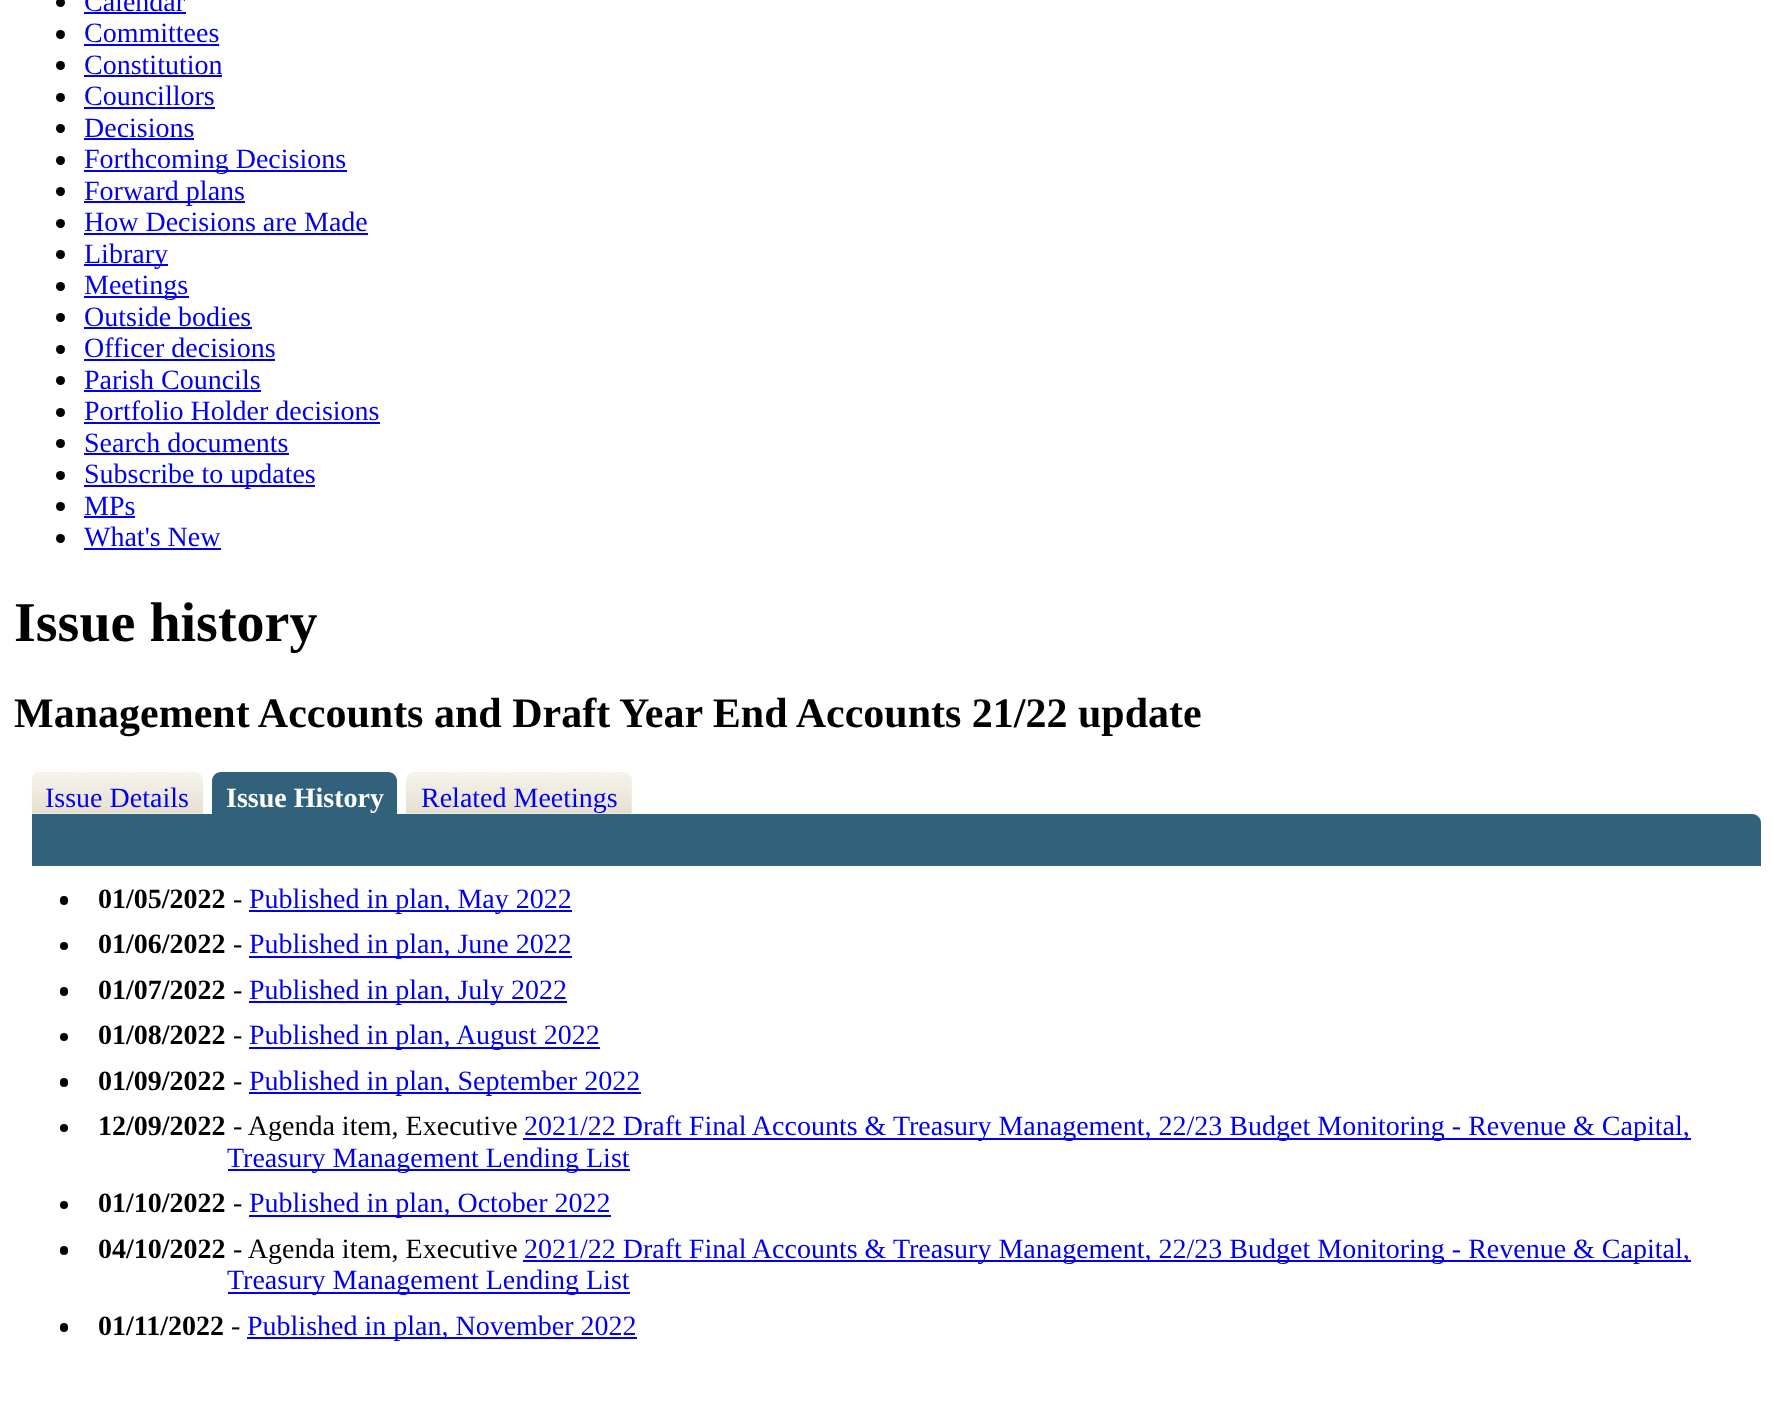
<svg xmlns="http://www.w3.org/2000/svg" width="1774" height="1401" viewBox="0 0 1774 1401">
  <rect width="100%" height="100%" fill="rgb(255,255,255)"/>
  <circle cx="60.5" cy="2.5" r="4.5" fill="rgb(0,0,0)"/>
  <text x="84" y="11" font-family="Liberation Serif" font-size="28" fill="rgb(0,0,238)">Calendar</text>
  <rect x="84" y="12" width="102" height="2" fill="rgb(0,0,238)"/>
  <circle cx="60.5" cy="34.5" r="4.5" fill="rgb(0,0,0)"/>
  <text x="84" y="42" font-family="Liberation Serif" font-size="28" fill="rgb(0,0,238)">Committees</text>
  <rect x="84" y="44" width="135" height="2" fill="rgb(0,0,238)"/>
  <circle cx="60.5" cy="65.5" r="4.5" fill="rgb(0,0,0)"/>
  <text x="84" y="74" font-family="Liberation Serif" font-size="28" fill="rgb(0,0,238)">Constitution</text>
  <rect x="84" y="75" width="138" height="2" fill="rgb(0,0,238)"/>
  <circle cx="60.5" cy="97.5" r="4.5" fill="rgb(0,0,0)"/>
  <text x="84" y="105" font-family="Liberation Serif" font-size="28" fill="rgb(0,0,238)">Councillors</text>
  <rect x="84" y="107" width="131" height="2" fill="rgb(0,0,238)"/>
  <circle cx="60.5" cy="128.5" r="4.5" fill="rgb(0,0,0)"/>
  <text x="84" y="137" font-family="Liberation Serif" font-size="28" fill="rgb(0,0,238)">Decisions</text>
  <rect x="84" y="138" width="110" height="2" fill="rgb(0,0,238)"/>
  <circle cx="60.5" cy="160.5" r="4.5" fill="rgb(0,0,0)"/>
  <rect x="84" y="170" width="263" height="2" fill="rgb(0,0,238)"/>
  <text x="84" y="168" font-family="Liberation Serif" font-size="28" fill="rgb(0,0,238)">Forthcoming Decisions</text>
  <circle cx="60.5" cy="191.5" r="4.5" fill="rgb(0,0,0)"/>
  <rect x="84" y="201" width="161" height="2" fill="rgb(0,0,238)"/>
  <text x="84" y="200" font-family="Liberation Serif" font-size="28" fill="rgb(0,0,238)">Forward plans</text>
  <circle cx="60.5" cy="223.5" r="4.5" fill="rgb(0,0,0)"/>
  <text x="84" y="231" font-family="Liberation Serif" font-size="28" fill="rgb(0,0,238)">How Decisions are Made</text>
  <rect x="84" y="233" width="284" height="2" fill="rgb(0,0,238)"/>
  <circle cx="60.5" cy="254.5" r="4.5" fill="rgb(0,0,0)"/>
  <rect x="84" y="264" width="84" height="2" fill="rgb(0,0,238)"/>
  <text x="84" y="263" font-family="Liberation Serif" font-size="28" fill="rgb(0,0,238)">Library</text>
  <circle cx="60.5" cy="286.5" r="4.5" fill="rgb(0,0,0)"/>
  <rect x="84" y="296" width="105" height="2" fill="rgb(0,0,238)"/>
  <text x="84" y="294" font-family="Liberation Serif" font-size="28" fill="rgb(0,0,238)">Meetings</text>
  <circle cx="60.5" cy="317.5" r="4.5" fill="rgb(0,0,0)"/>
  <text x="84" y="326" font-family="Liberation Serif" font-size="28" fill="rgb(0,0,238)">Outside bodies</text>
  <rect x="84" y="327" width="168" height="2" fill="rgb(0,0,238)"/>
  <circle cx="60.5" cy="349.5" r="4.5" fill="rgb(0,0,0)"/>
  <text x="84" y="357" font-family="Liberation Serif" font-size="28" fill="rgb(0,0,238)">Officer decisions</text>
  <rect x="84" y="359" width="191" height="2" fill="rgb(0,0,238)"/>
  <circle cx="60.5" cy="380.5" r="4.5" fill="rgb(0,0,0)"/>
  <text x="84" y="389" font-family="Liberation Serif" font-size="28" fill="rgb(0,0,238)">Parish Councils</text>
  <rect x="84" y="390" width="177" height="2" fill="rgb(0,0,238)"/>
  <circle cx="60.5" cy="412.5" r="4.5" fill="rgb(0,0,0)"/>
  <text x="84" y="420" font-family="Liberation Serif" font-size="28" fill="rgb(0,0,238)">Portfolio Holder decisions</text>
  <rect x="84" y="422" width="296" height="2" fill="rgb(0,0,238)"/>
  <circle cx="60.5" cy="443.5" r="4.5" fill="rgb(0,0,0)"/>
  <text x="84" y="452" font-family="Liberation Serif" font-size="28" fill="rgb(0,0,238)">Search documents</text>
  <rect x="84" y="453" width="205" height="2" fill="rgb(0,0,238)"/>
  <circle cx="60.5" cy="475.5" r="4.5" fill="rgb(0,0,0)"/>
  <rect x="84" y="485" width="231" height="2" fill="rgb(0,0,238)"/>
  <text x="84" y="483" font-family="Liberation Serif" font-size="28" fill="rgb(0,0,238)">Subscribe to updates</text>
  <circle cx="60.5" cy="506.5" r="4.5" fill="rgb(0,0,0)"/>
  <text x="84" y="515" font-family="Liberation Serif" font-size="28" fill="rgb(0,0,238)">MPs</text>
  <rect x="84" y="516" width="51" height="2" fill="rgb(0,0,238)"/>
  <circle cx="60.5" cy="538.5" r="4.5" fill="rgb(0,0,0)"/>
  <text x="84" y="546" font-family="Liberation Serif" font-size="28" fill="rgb(0,0,238)">What's New</text>
  <rect x="84" y="548" width="137" height="2" fill="rgb(0,0,238)"/>
  <text x="14" y="641" font-family="Liberation Serif" font-size="56" font-weight="bold" fill="rgb(0,0,0)">Issue history</text>
  <text x="14" y="727" font-family="Liberation Serif" font-size="42" font-weight="bold" fill="rgb(0,0,0)">Management Accounts and Draft Year End Accounts 21/22 update</text>
  <path d="M41 772H194C199 772 203 776 203 781V814H32V781C32 776 36 772 41 772Z" fill="rgb(243,243,243)"/>
  <image x="31" y="772" width="172" height="42" href="pic1.png"/>
  <text x="45" y="807" font-family="Liberation Serif" font-size="28" fill="rgb(0,0,238)">Issue Details</text>
  <path d="M221 772H388C393 772 397 776 397 781V814H212V781C212 776 216 772 221 772Z" fill="rgb(49,97,123)"/>
  <text x="226" y="807" font-family="Liberation Serif" font-size="28" font-weight="bold" fill="rgb(255,255,255)">Issue History</text>
  <path d="M415 772H623C628 772 632 776 632 781V814H406V781C406 776 410 772 415 772Z" fill="rgb(243,243,243)"/>
  <image x="406" y="772" width="226" height="42" href="pic2.png"/>
  <text x="421" y="807" font-family="Liberation Serif" font-size="28" fill="rgb(0,0,238)">Related Meetings</text>
  <path d="M32 814H1752C1757 814 1761 818 1761 823V866H32Z" fill="rgb(49,97,123)"/>
  <rect x="60" y="896" width="8" height="9" rx="4" fill="rgb(0,0,0)"/>
  <text x="98" y="908" font-family="Liberation Serif" font-size="28" font-weight="bold" fill="rgb(0,0,0)">01/05/2022</text>
  <text x="233" y="908" font-family="Liberation Serif" font-size="28" fill="rgb(0,0,0)">-</text>
  <rect x="249" y="910" width="323" height="2" fill="rgb(0,0,238)"/>
  <text x="249" y="908" font-family="Liberation Serif" font-size="28" fill="rgb(0,0,238)">Published in plan, May 2022</text>
  <circle cx="64" cy="946" r="4" fill="rgb(0,0,0)"/>
  <text x="98" y="953" font-family="Liberation Serif" font-size="28" font-weight="bold" fill="rgb(0,0,0)">01/06/2022</text>
  <text x="233" y="953" font-family="Liberation Serif" font-size="28" fill="rgb(0,0,0)">-</text>
  <rect x="249" y="956" width="323" height="2" fill="rgb(0,0,238)"/>
  <text x="249" y="953" font-family="Liberation Serif" font-size="28" fill="rgb(0,0,238)">Published in plan, June 2022</text>
  <rect x="60" y="987" width="8" height="9" rx="4" fill="rgb(0,0,0)"/>
  <text x="98" y="999" font-family="Liberation Serif" font-size="28" font-weight="bold" fill="rgb(0,0,0)">01/07/2022</text>
  <text x="233" y="999" font-family="Liberation Serif" font-size="28" fill="rgb(0,0,0)">-</text>
  <rect x="249" y="1001" width="318" height="2" fill="rgb(0,0,238)"/>
  <text x="249" y="999" font-family="Liberation Serif" font-size="28" fill="rgb(0,0,238)">Published in plan, July 2022</text>
  <circle cx="64" cy="1037" r="4" fill="rgb(0,0,0)"/>
  <text x="98" y="1044" font-family="Liberation Serif" font-size="28" font-weight="bold" fill="rgb(0,0,0)">01/08/2022</text>
  <text x="233" y="1044" font-family="Liberation Serif" font-size="28" fill="rgb(0,0,0)">-</text>
  <rect x="249" y="1047" width="351" height="2" fill="rgb(0,0,238)"/>
  <text x="249" y="1044" font-family="Liberation Serif" font-size="28" fill="rgb(0,0,238)">Published in plan, August 2022</text>
  <rect x="60" y="1078" width="8" height="9" rx="4" fill="rgb(0,0,0)"/>
  <text x="98" y="1090" font-family="Liberation Serif" font-size="28" font-weight="bold" fill="rgb(0,0,0)">01/09/2022</text>
  <text x="233" y="1090" font-family="Liberation Serif" font-size="28" fill="rgb(0,0,0)">-</text>
  <rect x="249" y="1092" width="392" height="2" fill="rgb(0,0,238)"/>
  <text x="249" y="1090" font-family="Liberation Serif" font-size="28" fill="rgb(0,0,238)">Published in plan, September 2022</text>
  <circle cx="64" cy="1128" r="4" fill="rgb(0,0,0)"/>
  <text x="98" y="1135" font-family="Liberation Serif" font-size="28" font-weight="bold" fill="rgb(0,0,0)">12/09/2022</text>
  <text x="233" y="1135" font-family="Liberation Serif" font-size="28" fill="rgb(0,0,0)">- Agenda item, Executive</text>
  <rect x="523" y="1138" width="1168" height="2" fill="rgb(0,0,238)"/>
  <text x="524" y="1135" font-family="Liberation Serif" font-size="28" fill="rgb(0,0,238)">2021/22 Draft Final Accounts &amp; Treasury Management, 22/23 Budget Monitoring - Revenue &amp; Capital,</text>
  <rect x="228" y="1169" width="402" height="2" fill="rgb(0,0,238)"/>
  <text x="227" y="1167" font-family="Liberation Serif" font-size="28" fill="rgb(0,0,238)">Treasury Management Lending List</text>
  <circle cx="64" cy="1205" r="4" fill="rgb(0,0,0)"/>
  <text x="98" y="1212" font-family="Liberation Serif" font-size="28" font-weight="bold" fill="rgb(0,0,0)">01/10/2022</text>
  <text x="233" y="1212" font-family="Liberation Serif" font-size="28" fill="rgb(0,0,0)">-</text>
  <rect x="249" y="1215" width="362" height="2" fill="rgb(0,0,238)"/>
  <text x="249" y="1212" font-family="Liberation Serif" font-size="28" fill="rgb(0,0,238)">Published in plan, October 2022</text>
  <rect x="60" y="1246" width="8" height="9" rx="4" fill="rgb(0,0,0)"/>
  <text x="98" y="1258" font-family="Liberation Serif" font-size="28" font-weight="bold" fill="rgb(0,0,0)">04/10/2022</text>
  <text x="233" y="1258" font-family="Liberation Serif" font-size="28" fill="rgb(0,0,0)">- Agenda item, Executive</text>
  <rect x="523" y="1260" width="1168" height="2" fill="rgb(0,0,238)"/>
  <text x="524" y="1258" font-family="Liberation Serif" font-size="28" fill="rgb(0,0,238)">2021/22 Draft Final Accounts &amp; Treasury Management, 22/23 Budget Monitoring - Revenue &amp; Capital,</text>
  <rect x="228" y="1292" width="402" height="2" fill="rgb(0,0,238)"/>
  <text x="227" y="1289" font-family="Liberation Serif" font-size="28" fill="rgb(0,0,238)">Treasury Management Lending List</text>
  <rect x="60" y="1323" width="8" height="9" rx="4" fill="rgb(0,0,0)"/>
  <text x="98" y="1335" font-family="Liberation Serif" font-size="28" font-weight="bold" fill="rgb(0,0,0)">01/11/2022</text>
  <text x="231" y="1335" font-family="Liberation Serif" font-size="28" fill="rgb(0,0,0)">-</text>
  <rect x="247" y="1337" width="390" height="2" fill="rgb(0,0,238)"/>
  <text x="247" y="1335" font-family="Liberation Serif" font-size="28" fill="rgb(0,0,238)">Published in plan, November 2022</text>
</svg>
